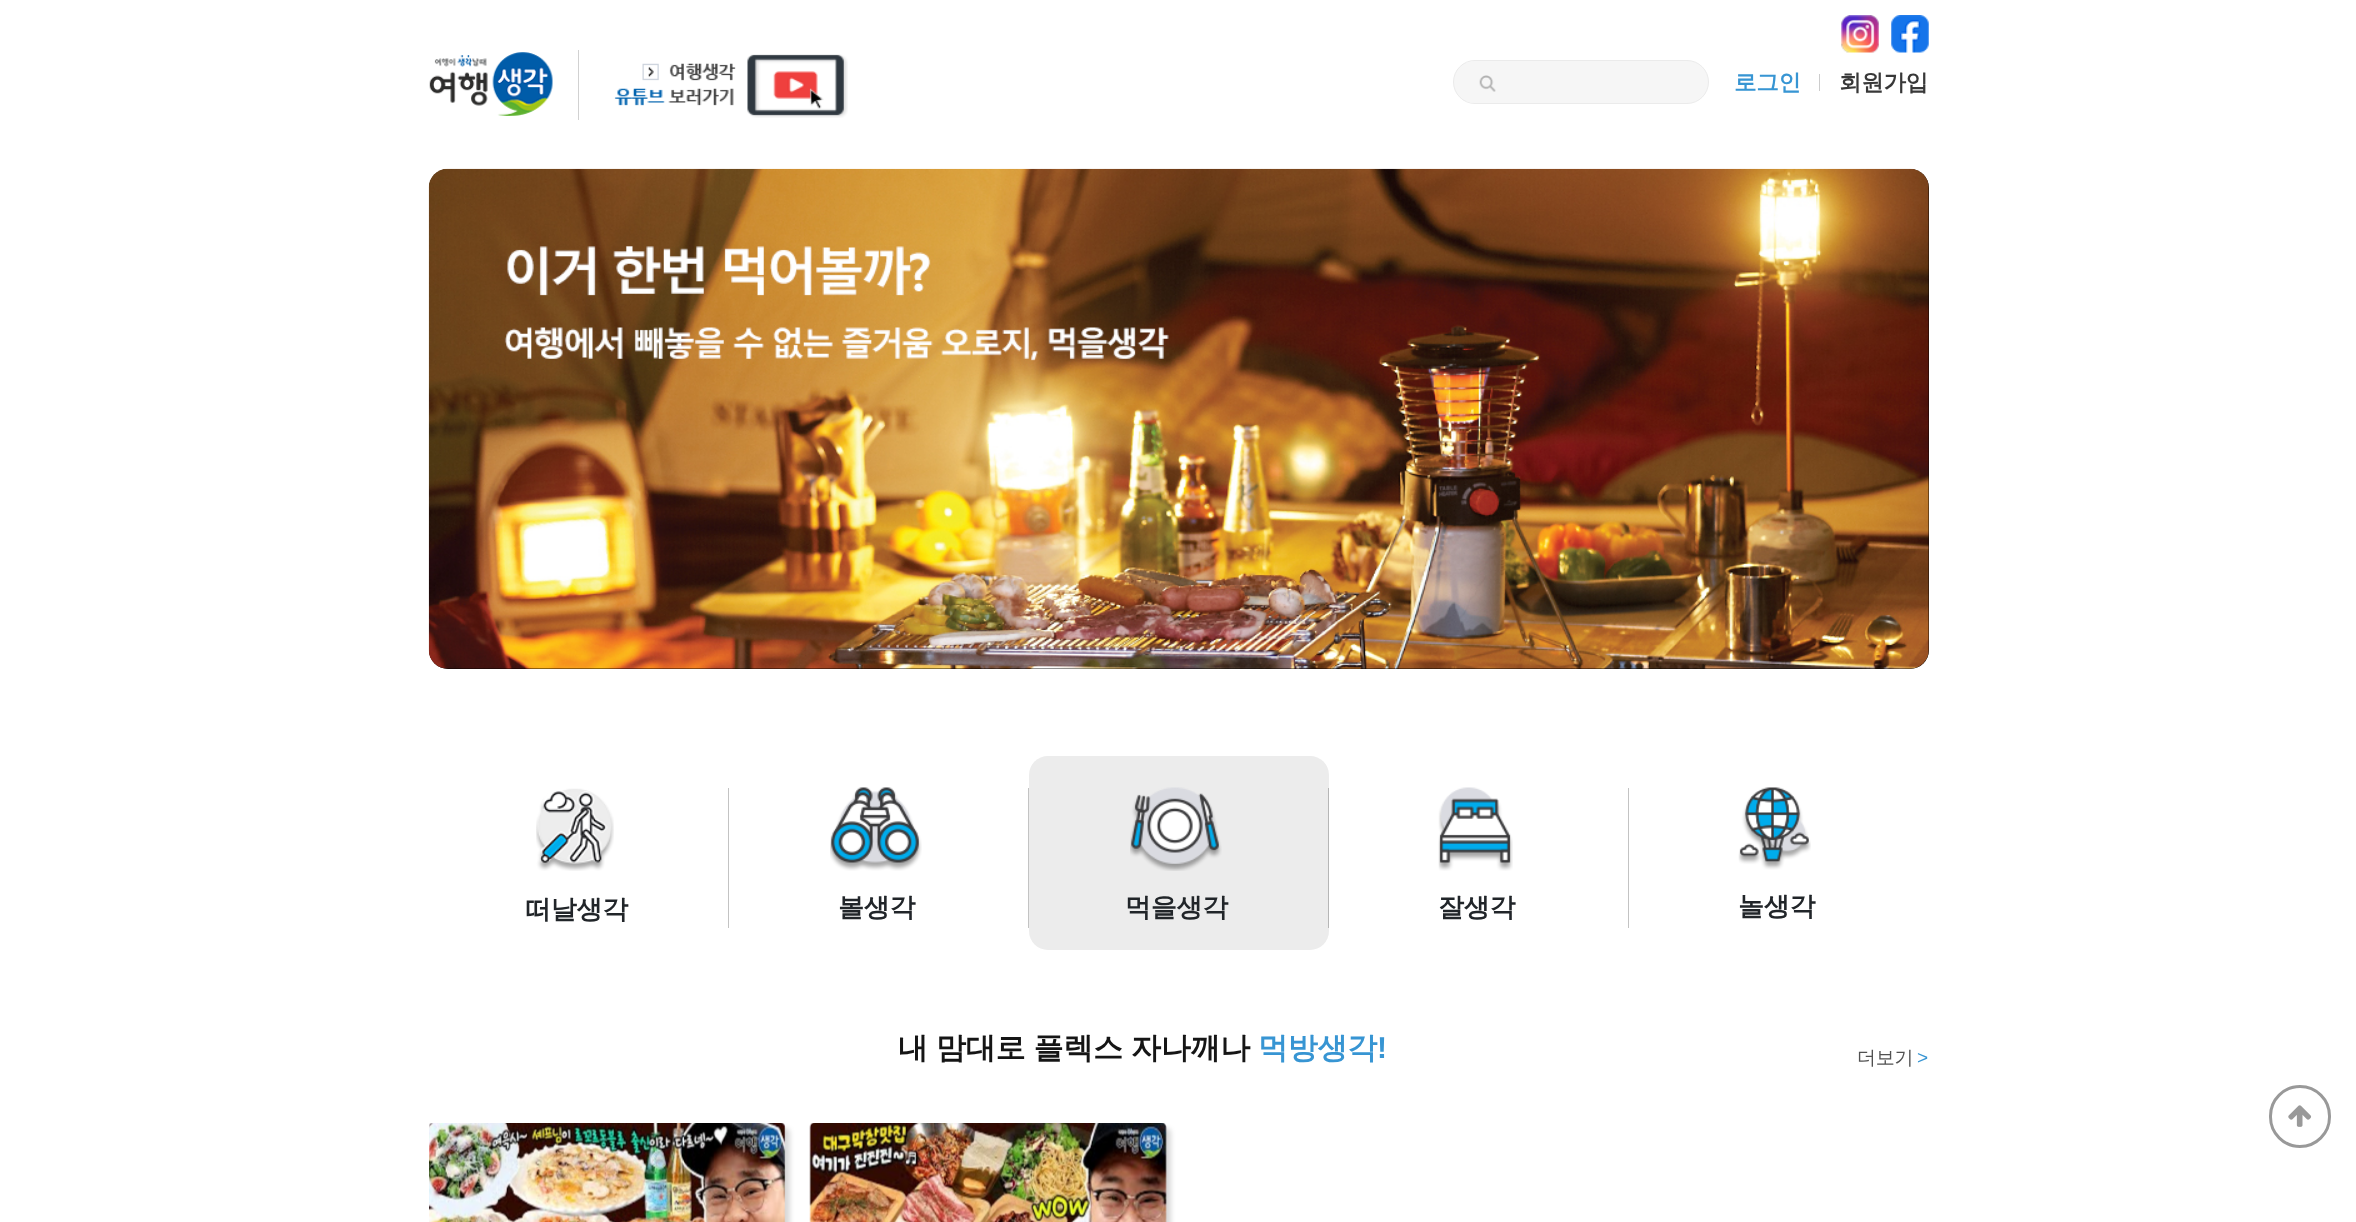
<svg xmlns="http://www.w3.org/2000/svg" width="2356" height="1222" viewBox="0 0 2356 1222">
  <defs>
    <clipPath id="clip1"><rect x="1454" y="61" width="254" height="42" rx="21"/></clipPath>
  </defs>
  <rect width="100%" height="100%" fill="rgb(255,255,255)"/>
  <image x="1841" y="15" width="38" height="38" href="pic1.png"/>
  <image x="1891" y="15" width="38" height="38" href="pic2.png"/>
  <image x="429" y="52" width="124" height="64" href="pic3.png"/>
  <rect x="578" y="50" width="1" height="70" fill="rgb(209,209,209)"/>
  <image x="614" y="54" width="234" height="64" href="pic4.png"/>
  <rect x="1453.5" y="60.5" width="255" height="43" rx="21.5" fill="rgb(246,246,246)" stroke="rgb(235,235,235)"/>
  <g clip-path="url(#clip1)">
    <rect x="1466" y="61" width="44" height="42" fill="rgb(246,246,246)"/>
  </g>
  <image x="1479" y="75" width="17" height="17" href="pic5.png"/>
  <rect x="1819" y="74" width="1" height="17" fill="rgb(204,204,204)"/>
  <text x="1734" y="90" font-family="WenQuanYi Zen Hei" font-size="22.5" font-weight="bold" letter-spacing="-0.25" fill="rgb(55,149,211)">로그인</text>
  <text x="1839" y="90" font-family="WenQuanYi Zen Hei" font-size="22.5" font-weight="bold" letter-spacing="-0.25" fill="rgb(56,56,56)">회원가입</text>
  <rect x="429" y="169" width="1500" height="500" rx="19" fill="rgb(0,0,0)"/>
  <image x="428" y="168" width="1501" height="501" href="pic6.png"/>
  <image x="536" y="788" width="78" height="83" href="pic7.png"/>
  <text x="525" y="918" font-family="WenQuanYi Zen Hei" font-size="26" font-weight="bold" letter-spacing="-0.25" fill="rgb(33,37,41)">떠날생각</text>
  <rect x="728" y="788" width="1" height="140" fill="rgb(195,195,195)"/>
  <image x="830" y="787" width="92" height="84" href="pic8.png"/>
  <text x="838" y="916" font-family="WenQuanYi Zen Hei" font-size="26" font-weight="bold" letter-spacing="-0.25" fill="rgb(33,37,41)">볼생각</text>
  <rect x="1028" y="788" width="1" height="140" fill="rgb(195,195,195)"/>
  <rect x="1029" y="756" width="300" height="194" rx="19" fill="rgb(236,236,236)"/>
  <image x="1130" y="787" width="92" height="84" href="pic9.png"/>
  <text x="1125" y="916" font-family="WenQuanYi Zen Hei" font-size="26" font-weight="bold" letter-spacing="-0.25" fill="rgb(33,37,41)">먹을생각</text>
  <rect x="1328" y="788" width="1" height="140" fill="rgb(182,182,182)"/>
  <image x="1438" y="787" width="75" height="84" href="pic10.png"/>
  <text x="1438" y="916" font-family="WenQuanYi Zen Hei" font-size="26" font-weight="bold" letter-spacing="-0.25" fill="rgb(33,37,41)">잘생각</text>
  <rect x="1628" y="788" width="1" height="140" fill="rgb(195,195,195)"/>
  <image x="1738" y="787" width="73" height="83" href="pic11.png"/>
  <text x="1738" y="915" font-family="WenQuanYi Zen Hei" font-size="26" font-weight="bold" letter-spacing="-0.25" fill="rgb(33,37,41)">놀생각</text>
  <text x="898" y="1058" word-spacing="-0.5" font-family="WenQuanYi Zen Hei" font-size="30" font-weight="bold" letter-spacing="-0.25" fill="rgb(21,21,21)">내 맘대로 플렉스 자나깨나</text>
  <text x="1258" y="1058" font-family="WenQuanYi Zen Hei" font-size="30" font-weight="bold" letter-spacing="-0.25" fill="rgb(55,149,211)">먹방생각</text>
  <text x="1377" y="1058" font-family="Liberation Sans" font-size="30" font-weight="bold" letter-spacing="-0.25" fill="rgb(55,149,211)">!</text>
  <text x="1857" y="1064" font-family="WenQuanYi Zen Hei" font-size="19" font-weight="500" letter-spacing="-0.25" fill="rgb(81,81,81)">더보기</text>
  <text x="1917" y="1064" font-family="Liberation Sans" font-size="19" letter-spacing="-0.25" fill="rgb(55,149,211)">&gt;</text>
  <rect x="434" y="1128" width="356" height="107" rx="5" fill="rgba(0,0,0,0.15)" filter="blur(2.5px)"/>
  <image x="429" y="1123" width="357" height="99" href="pic12.png"/>
  <rect x="815" y="1128" width="356" height="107" rx="5" fill="rgba(0,0,0,0.15)" filter="blur(2.5px)"/>
  <image x="809" y="1123" width="358" height="99" href="pic13.png"/>
  <rect x="2270.5" y="1086.5" width="59" height="60" rx="29.5" fill="none" stroke="rgb(153,153,153)" stroke-width="3"/>
  <image x="2288" y="1105" width="24" height="22" href="pic14.png"/>
</svg>
